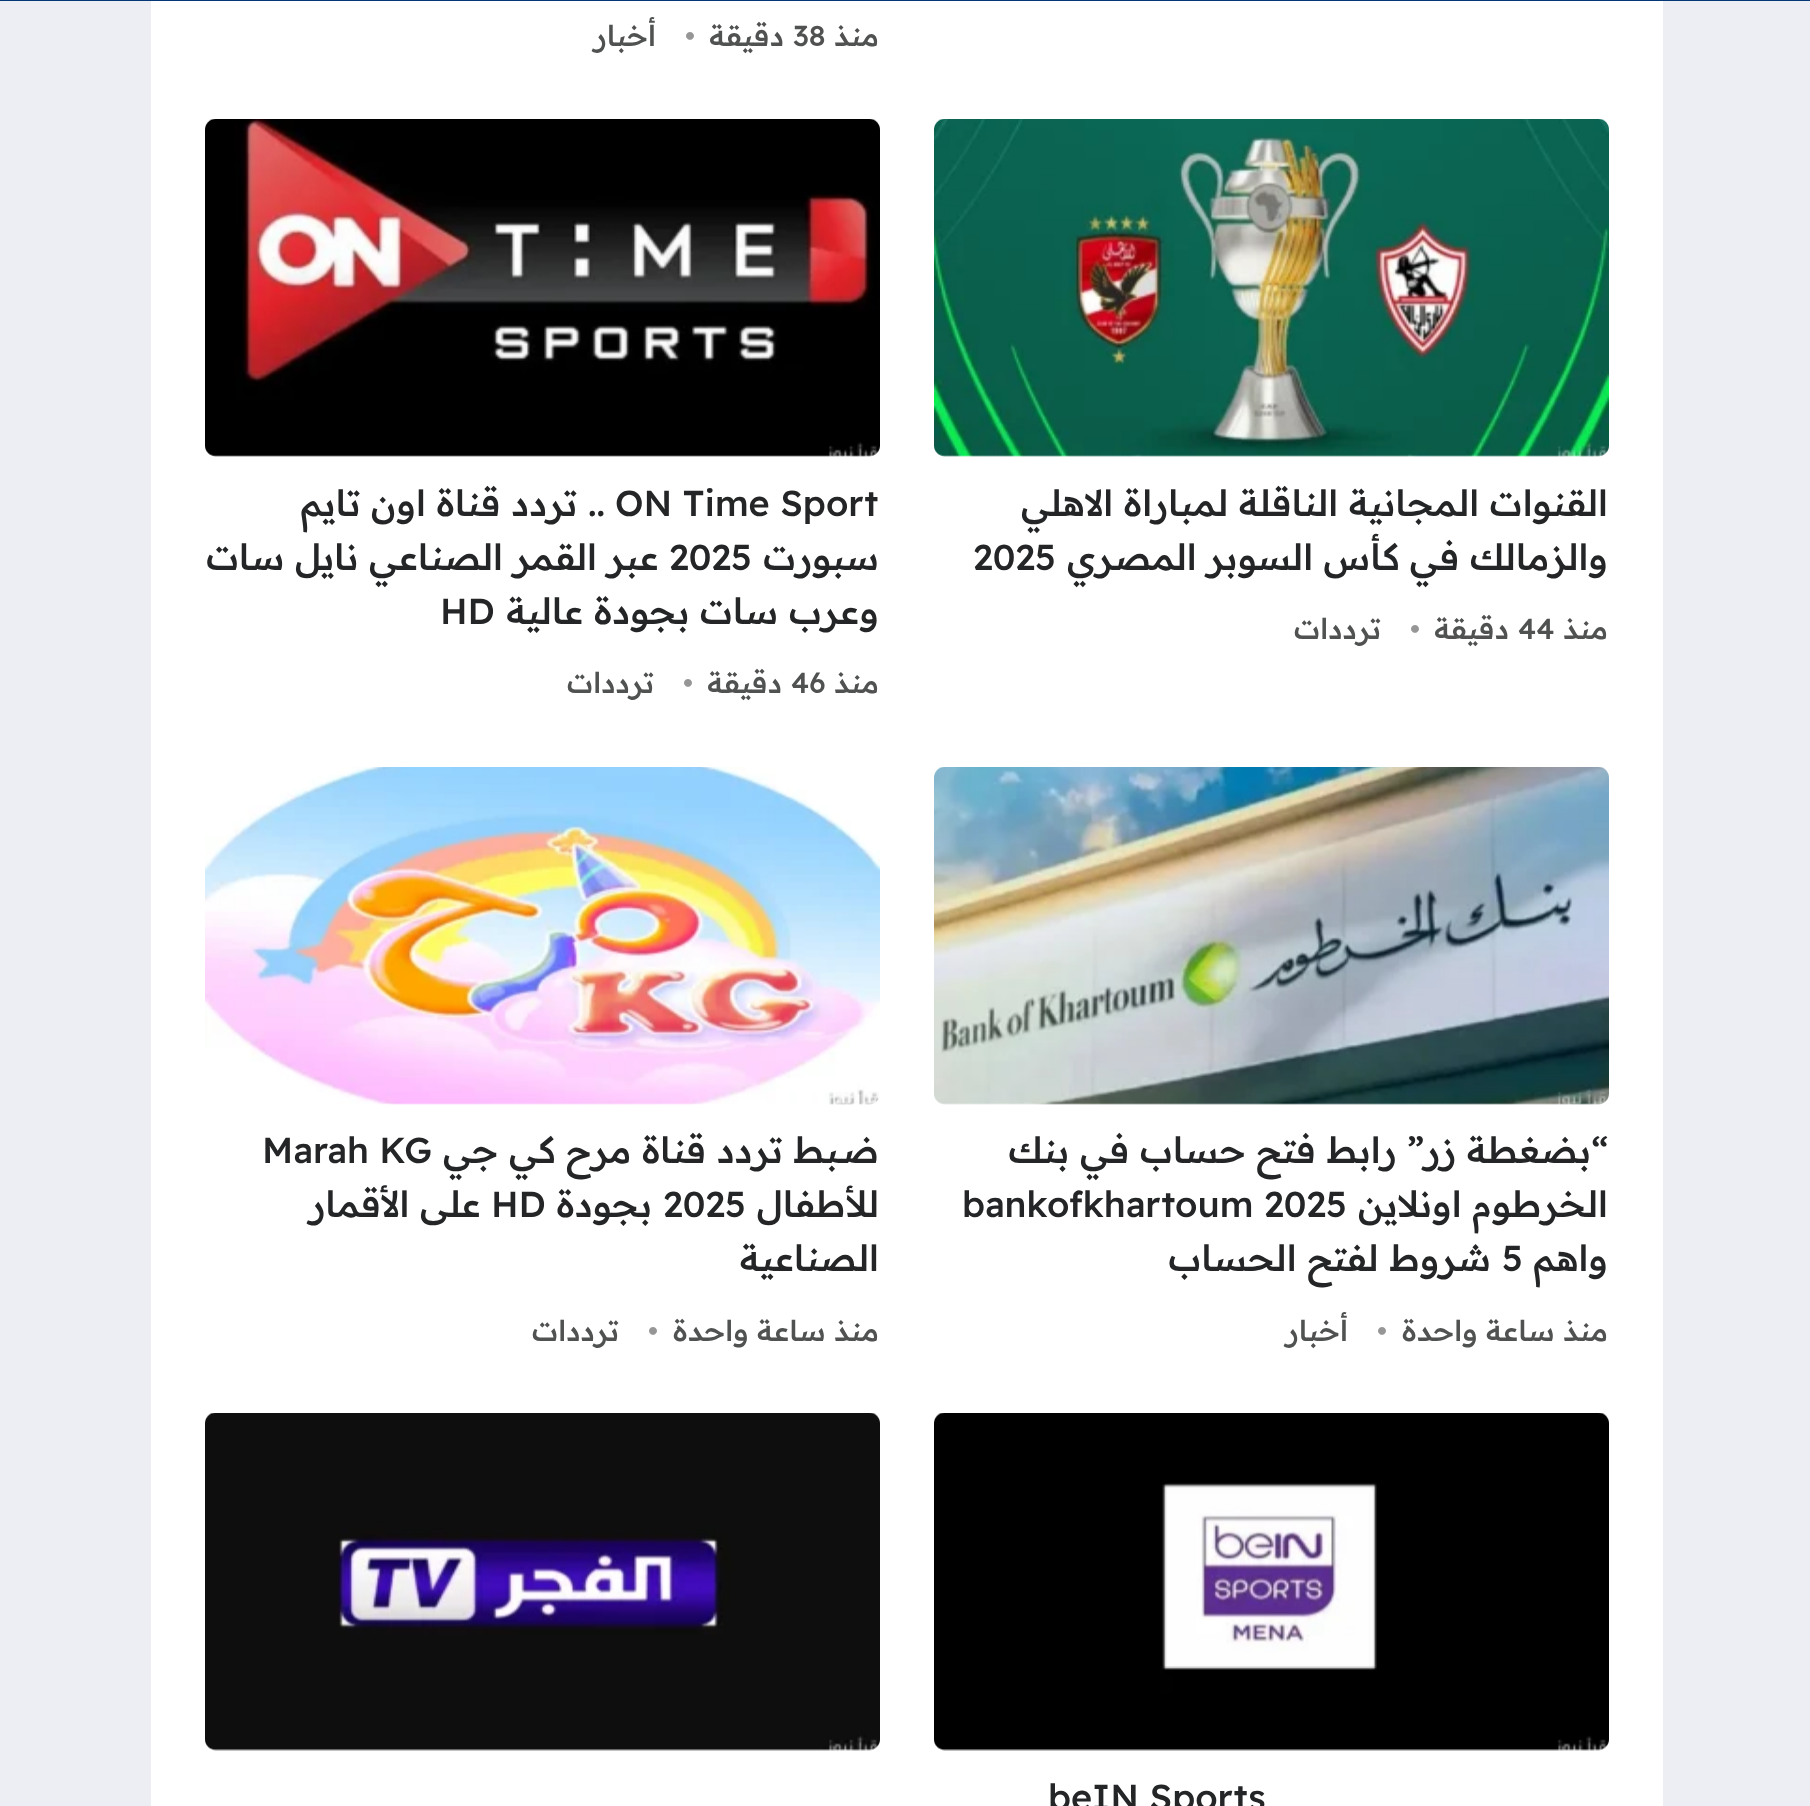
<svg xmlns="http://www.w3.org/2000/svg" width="1810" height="1806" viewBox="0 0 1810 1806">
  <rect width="100%" height="100%" fill="rgb(237,238,243)"/>
  <rect x="0" y="0" width="1810" height="1" fill="rgb(4,55,117)"/>
  <rect x="151" y="1" width="1512" height="1805" fill="rgb(255,255,255)"/>
  <text x="879" y="46" font-family="Readex Pro" font-size="28.75" font-weight="500" direction="rtl" fill="rgb(80,81,81)">منذ</text>
  <text x="793" y="46" font-family="Readex Pro" font-size="28.75" font-weight="500" fill="rgb(80,81,81)">38</text>
  <text x="784" y="46" font-family="Readex Pro" font-size="28.75" font-weight="500" direction="rtl" fill="rgb(80,81,81)">دقيقة</text>
  <text x="685" y="46" font-family="Readex Pro" font-size="28.75" font-weight="500" fill="rgb(150,150,151)">•</text>
  <text x="656" y="46" font-family="Readex Pro" font-size="28.75" font-weight="500" direction="rtl" fill="rgb(80,81,81)">أخبار</text>
  <image x="934" y="119" width="675" height="338" href="pic1.png"/>
  <g font-family="Readex Pro" font-size="36" font-weight="500" direction="rtl" fill="rgb(36,37,38)">
    <text>
      <tspan x="1608" y="516">القنوات المجانية الناقلة لمباراة الاهلي</tspan>
      <tspan x="1608" y="570">والزمالك في كأس السوبر المصري</tspan>
    </text>
  </g>
  <text x="973" y="570" font-family="Readex Pro" font-size="36" font-weight="500" fill="rgb(36,37,38)">2025</text>
  <text x="1608" y="639" font-family="Readex Pro" font-size="28.75" font-weight="500" direction="rtl" fill="rgb(80,81,81)">منذ</text>
  <text x="1518" y="639" font-family="Readex Pro" font-size="28.75" font-weight="500" fill="rgb(80,81,81)">44</text>
  <text x="1509" y="639" font-family="Readex Pro" font-size="28.75" font-weight="500" direction="rtl" fill="rgb(80,81,81)">دقيقة</text>
  <text x="1410" y="639" font-family="Readex Pro" font-size="28.75" font-weight="500" fill="rgb(150,150,151)">•</text>
  <text x="1381" y="639" font-family="Readex Pro" font-size="28.75" font-weight="500" direction="rtl" fill="rgb(80,81,81)">ترددات</text>
  <image x="205" y="119" width="675" height="338" href="pic2.png"/>
  <text x="615" y="516" font-family="Readex Pro" font-size="36" font-weight="500" fill="rgb(36,37,38)">ON Time Sport</text>
  <g font-family="Readex Pro" font-size="36" font-weight="500" direction="rtl" fill="rgb(36,37,38)">
    <text x="605" y="516">.. تردد قناة اون تايم</text>
    <text x="879" y="570">سبورت</text>
  </g>
  <text x="669" y="570" font-family="Readex Pro" font-size="36" font-weight="500" fill="rgb(36,37,38)">2025</text>
  <g font-family="Readex Pro" font-size="36" font-weight="500" direction="rtl" fill="rgb(36,37,38)">
    <text x="659" y="570">عبر القمر الصناعي نايل سات</text>
    <text x="879" y="624">وعرب سات بجودة عالية</text>
  </g>
  <text x="440" y="624" font-family="Readex Pro" font-size="36" font-weight="500" fill="rgb(36,37,38)">HD</text>
  <text x="879" y="693" font-family="Readex Pro" font-size="28.75" font-weight="500" direction="rtl" fill="rgb(80,81,81)">منذ</text>
  <text x="791" y="693" font-family="Readex Pro" font-size="28.75" font-weight="500" fill="rgb(80,81,81)">46</text>
  <text x="782" y="693" font-family="Readex Pro" font-size="28.75" font-weight="500" direction="rtl" fill="rgb(80,81,81)">دقيقة</text>
  <text x="683" y="693" font-family="Readex Pro" font-size="28.75" font-weight="500" fill="rgb(150,150,151)">•</text>
  <text x="654" y="693" font-family="Readex Pro" font-size="28.75" font-weight="500" direction="rtl" fill="rgb(80,81,81)">ترددات</text>
  <image x="934" y="767" width="675" height="338" href="pic3.png"/>
  <g font-family="Readex Pro" font-size="36" font-weight="500" direction="rtl" fill="rgb(36,37,38)">
    <text>
      <tspan x="1608" y="1163">“بضغطة زر” رابط فتح حساب في بنك</tspan>
      <tspan x="1608" y="1217">الخرطوم اونلاين</tspan>
    </text>
  </g>
  <text x="962" y="1217" font-family="Readex Pro" font-size="36" font-weight="500" fill="rgb(36,37,38)">bankofkhartoum 2025</text>
  <text x="1608" y="1271" font-family="Readex Pro" font-size="36" font-weight="500" direction="rtl" fill="rgb(36,37,38)">واهم</text>
  <text x="1502" y="1271" font-family="Readex Pro" font-size="36" font-weight="500" fill="rgb(36,37,38)">5</text>
  <text x="1491" y="1271" font-family="Readex Pro" font-size="36" font-weight="500" direction="rtl" fill="rgb(36,37,38)">شروط لفتح الحساب</text>
  <text x="1608" y="1341" font-family="Readex Pro" font-size="28.75" font-weight="500" direction="rtl" fill="rgb(80,81,81)">منذ ساعة واحدة</text>
  <text x="1377" y="1341" font-family="Readex Pro" font-size="28.75" font-weight="500" fill="rgb(150,150,151)">•</text>
  <text x="1348" y="1341" font-family="Readex Pro" font-size="28.75" font-weight="500" direction="rtl" fill="rgb(80,81,81)">أخبار</text>
  <image x="205" y="767" width="675" height="338" href="pic4.png"/>
  <text x="879" y="1163" font-family="Readex Pro" font-size="36" font-weight="500" direction="rtl" fill="rgb(36,37,38)">ضـبط تردد قناة مرح كي جي</text>
  <text x="262" y="1163" font-family="Readex Pro" font-size="36" font-weight="500" fill="rgb(36,37,38)">Marah KG</text>
  <text x="879" y="1217" font-family="Readex Pro" font-size="36" font-weight="500" direction="rtl" fill="rgb(36,37,38)">للأطفال</text>
  <text x="663" y="1217" font-family="Readex Pro" font-size="36" font-weight="500" fill="rgb(36,37,38)">2025</text>
  <text x="652" y="1217" font-family="Readex Pro" font-size="36" font-weight="500" direction="rtl" fill="rgb(36,37,38)">بجودة</text>
  <text x="491" y="1217" font-family="Readex Pro" font-size="36" font-weight="500" fill="rgb(36,37,38)">HD</text>
  <g font-family="Readex Pro" font-size="36" font-weight="500" direction="rtl" fill="rgb(36,37,38)">
    <text x="481" y="1217">على الأقمار</text>
    <text x="879" y="1271">الصناعية</text>
  </g>
  <text x="879" y="1341" font-family="Readex Pro" font-size="28.75" font-weight="500" direction="rtl" fill="rgb(80,81,81)">منذ ساعة واحدة</text>
  <text x="648" y="1341" font-family="Readex Pro" font-size="28.75" font-weight="500" fill="rgb(150,150,151)">•</text>
  <text x="619" y="1341" font-family="Readex Pro" font-size="28.75" font-weight="500" direction="rtl" fill="rgb(80,81,81)">ترددات</text>
  <image x="205" y="1413" width="675" height="338" href="pic5.png"/>
  <image x="934" y="1413" width="675" height="338" href="pic6.png"/>
  <text x="1048" y="1810" font-family="Readex Pro" font-size="36" font-weight="500" fill="rgb(36,37,38)">beIN Sports</text>
</svg>
